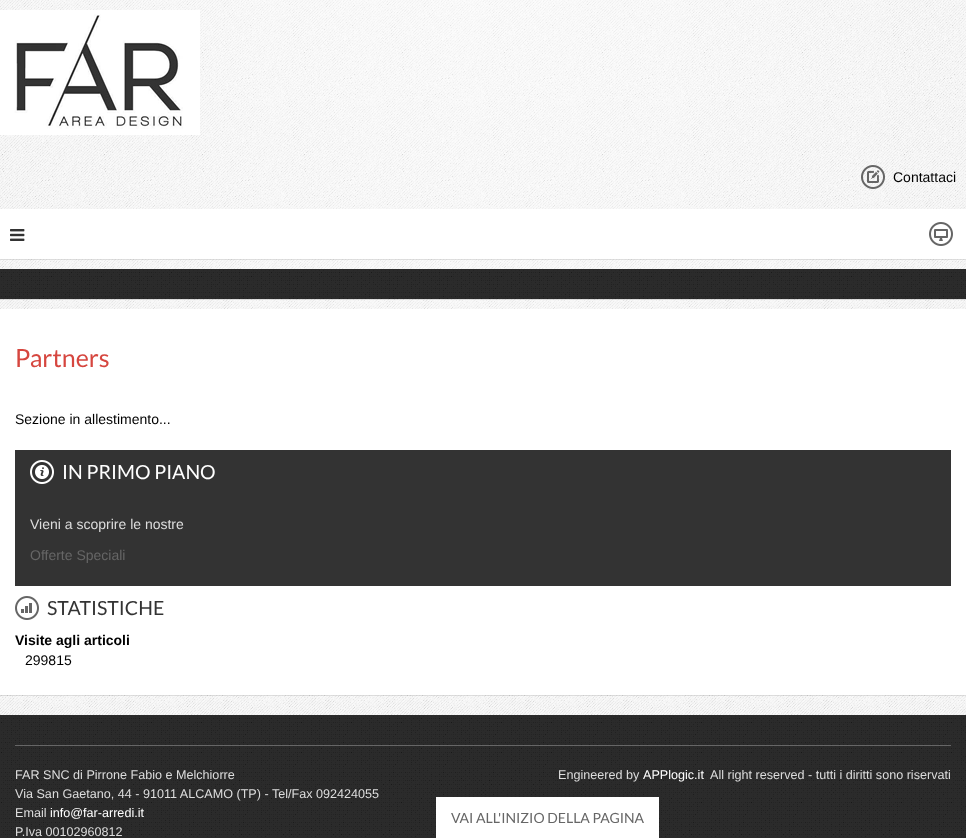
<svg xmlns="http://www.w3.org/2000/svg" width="966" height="838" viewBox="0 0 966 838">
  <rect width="100%" height="100%" fill="rgb(255,255,255)"/>
  <image x="0" y="0" width="966" height="715" href="pic1.png"/>
  <image x="0" y="10" width="200" height="125" href="pic2.png"/>
  <image x="861" y="165" width="24" height="24" href="pic3.png"/>
  <text x="893" y="182" font-family="Liberation Sans" font-size="14" fill="rgb(0,0,0)">Contattaci</text>
  <rect x="0" y="259" width="966" height="1" fill="rgba(0,0,0,0.1)"/>
  <rect x="0" y="209" width="966" height="50" fill="rgb(255,255,255)"/>
  <image x="10" y="229" width="15" height="12" href="pic4.png"/>
  <image x="929" y="222" width="24" height="24" href="pic5.png"/>
  <rect x="0" y="299" width="966" height="1" fill="rgba(0,0,0,0.1)"/>
  <image x="0" y="269" width="966" height="30" href="pic6.png"/>
  <rect x="0" y="695" width="966" height="1" fill="rgba(0,0,0,0.1)"/>
  <rect x="0" y="309" width="966" height="386" fill="rgb(255,255,255)"/>
  <text x="15" y="367" font-family="Lato" font-size="25" fill="rgb(214,70,63)">Partners</text>
  <text x="15" y="424" font-family="Liberation Sans" font-size="14" fill="rgb(0,0,0)">Sezione in allestimento...</text>
  <rect x="15" y="450" width="936" height="136" fill="rgb(51,51,51)"/>
  <image x="30" y="460" width="24" height="24" href="pic7.png"/>
  <text x="62" y="479" font-family="Lato" font-size="19.5" fill="rgb(255,255,255)">IN PRIMO PIANO</text>
  <text x="30" y="529" font-family="Liberation Sans" font-size="14" fill="rgb(221,221,221)">Vieni a scoprire le nostre</text>
  <text x="30" y="560" font-family="Liberation Sans" font-size="14" fill="rgb(102,102,102)">Offerte Speciali</text>
  <image x="15" y="596" width="24" height="24" href="pic8.png"/>
  <text x="47" y="615" font-family="Lato" font-size="19.5" fill="rgb(51,51,51)">STATISTICHE</text>
  <text x="15" y="645" font-family="Liberation Sans" font-size="14" font-weight="bold" fill="rgb(0,0,0)">Visite agli articoli</text>
  <text x="25" y="665" font-family="Liberation Sans" font-size="14" fill="rgb(0,0,0)">299815</text>
  <image x="0" y="715" width="966" height="30" href="pic6.png"/>
  <image x="0" y="745" width="966" height="93" href="pic9.png"/>
  <rect x="15" y="745" width="936" height="1" fill="rgb(102,102,102)"/>
  <g font-family="Liberation Sans" font-size="12.6" fill="rgb(221,221,221)">
    <text>
      <tspan x="15" y="779">FAR SNC di Pirrone Fabio e Melchiorre</tspan>
      <tspan x="15" y="798">Via San Gaetano, 44 - 91011 ALCAMO (TP) - Tel/Fax 092424055</tspan>
      <tspan x="15" y="817">Email</tspan>
    </text>
  </g>
  <text x="50" y="817" font-family="Liberation Sans" font-size="12.6" fill="rgb(255,255,255)">info@far-arredi.it</text>
  <g font-family="Liberation Sans" font-size="12.6" fill="rgb(221,221,221)">
    <text x="15" y="836">P.Iva 00102960812</text>
    <text x="558" y="779">Engineered by</text>
  </g>
  <text x="643" y="779" font-family="Liberation Sans" font-size="12.6" fill="rgb(255,255,255)">APPlogic.it</text>
  <text x="710" y="779" font-family="Liberation Sans" font-size="12.6" fill="rgb(221,221,221)">All right reserved - tutti i diritti sono riservati</text>
  <rect x="436" y="797" width="223" height="41" fill="rgb(255,255,255)"/>
  <text x="451" y="823" font-family="Lato" font-size="14" fill="rgb(102,102,102)">VAI ALL'INIZIO DELLA PAGINA</text>
</svg>
